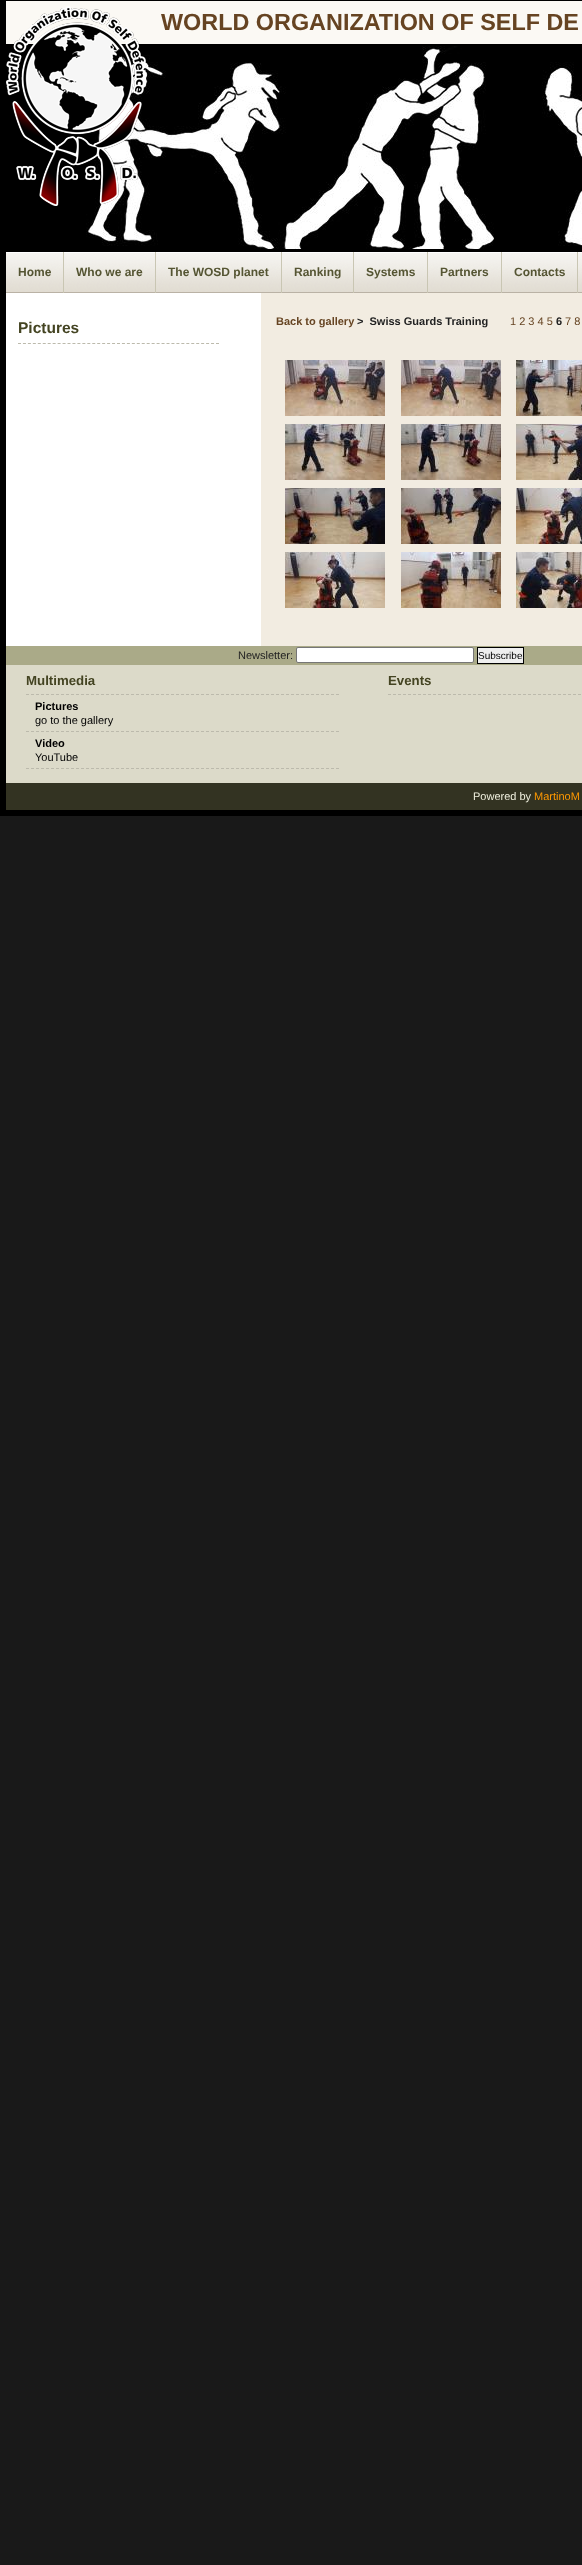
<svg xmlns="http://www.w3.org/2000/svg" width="582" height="2565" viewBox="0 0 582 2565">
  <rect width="100%" height="100%" fill="rgb(25,25,25)"/>
  <rect x="0" y="0" width="582" height="816" fill="rgb(0,0,0)"/>
  <rect x="6" y="1" width="576" height="43" fill="rgb(251,249,244)"/>
  <image x="86" y="46" width="496" height="203" href="pic2.png"/>
  <image x="6" y="6" width="140" height="200" href="pic1.png"/>
  <text x="161" y="30" font-family="Liberation Sans" font-size="23.4" font-weight="bold" fill="rgb(102,68,34)">WORLD ORGANIZATION OF SELF DE</text>
  <rect x="6" y="252" width="57" height="1" fill="rgb(255,255,255)"/>
  <image x="6" y="253" width="57" height="40" href="pic3.png"/>
  <rect x="63" y="252" width="1" height="41" fill="rgb(201,198,179)"/>
  <text x="18" y="276" font-family="Liberation Sans" font-size="12" font-weight="bold" fill="rgb(85,85,51)">Home</text>
  <rect x="64" y="252" width="91" height="1" fill="rgb(255,255,255)"/>
  <image x="64" y="253" width="91" height="40" href="pic4.png"/>
  <rect x="155" y="252" width="1" height="41" fill="rgb(201,198,179)"/>
  <text x="76" y="276" font-family="Liberation Sans" font-size="12" font-weight="bold" fill="rgb(85,85,51)">Who we are</text>
  <rect x="156" y="252" width="125" height="1" fill="rgb(255,255,255)"/>
  <image x="156" y="253" width="125" height="40" href="pic5.png"/>
  <rect x="281" y="252" width="1" height="41" fill="rgb(201,198,179)"/>
  <text x="168" y="276" font-family="Liberation Sans" font-size="12" font-weight="bold" fill="rgb(85,85,51)">The WOSD planet</text>
  <rect x="282" y="252" width="71" height="1" fill="rgb(255,255,255)"/>
  <image x="282" y="253" width="71" height="40" href="pic6.png"/>
  <rect x="353" y="252" width="1" height="41" fill="rgb(201,198,179)"/>
  <text x="294" y="276" font-family="Liberation Sans" font-size="12" font-weight="bold" fill="rgb(85,85,51)">Ranking</text>
  <rect x="354" y="252" width="73" height="1" fill="rgb(255,255,255)"/>
  <image x="354" y="253" width="73" height="40" href="pic7.png"/>
  <rect x="427" y="252" width="1" height="41" fill="rgb(201,198,179)"/>
  <text x="366" y="276" font-family="Liberation Sans" font-size="12" font-weight="bold" fill="rgb(85,85,51)">Systems</text>
  <rect x="428" y="252" width="73" height="1" fill="rgb(255,255,255)"/>
  <image x="428" y="253" width="73" height="40" href="pic7.png"/>
  <rect x="501" y="252" width="1" height="41" fill="rgb(201,198,179)"/>
  <text x="440" y="276" font-family="Liberation Sans" font-size="12" font-weight="bold" fill="rgb(85,85,51)">Partners</text>
  <rect x="502" y="252" width="75" height="1" fill="rgb(255,255,255)"/>
  <image x="502" y="253" width="75" height="40" href="pic8.png"/>
  <rect x="577" y="252" width="1" height="41" fill="rgb(201,198,179)"/>
  <text x="514" y="276" font-family="Liberation Sans" font-size="12" font-weight="bold" fill="rgb(85,85,51)">Contacts</text>
  <rect x="578" y="252" width="4" height="1" fill="rgb(255,255,255)"/>
  <image x="578" y="253" width="4" height="40" href="pic9.png"/>
  <rect x="6" y="293" width="255" height="353" fill="rgb(255,255,255)"/>
  <rect x="261" y="293" width="321" height="353" fill="rgb(242,236,225)"/>
  <text x="18" y="333" font-family="Liberation Sans" font-size="15.5" font-weight="bold" fill="rgb(68,68,34)">Pictures</text>
  <path d="M18 343.5H219" fill="none" stroke="rgb(188,186,172)" stroke-dasharray="3 1.95"/>
  <text x="276" y="325" font-family="Liberation Sans" font-size="11" font-weight="bold" fill="rgb(102,68,34)">Back to gallery</text>
  <text x="357" y="325" font-family="Liberation Sans" font-size="11" font-weight="bold" fill="rgb(34,34,34)" xml:space="preserve">&gt;  Swiss Guards Training</text>
  <text x="510" y="325" font-family="Liberation Sans" font-size="11" fill="rgb(102,68,34)">1 2 3 4 5</text>
  <text x="556" y="325" font-family="Liberation Sans" font-size="11" font-weight="bold" fill="rgb(34,34,34)">6</text>
  <text x="565" y="325" font-family="Liberation Sans" font-size="11" fill="rgb(102,68,34)">7 8</text>
  <image x="285" y="360" width="100" height="56" href="pic10.png"/>
  <image x="401" y="360" width="100" height="56" href="pic11.png"/>
  <image x="516" y="360" width="66" height="56" href="pic12.png"/>
  <image x="285" y="424" width="100" height="56" href="pic13.png"/>
  <image x="401" y="424" width="100" height="56" href="pic14.png"/>
  <image x="516" y="424" width="66" height="56" href="pic15.png"/>
  <image x="285" y="488" width="100" height="56" href="pic16.png"/>
  <image x="401" y="488" width="100" height="56" href="pic17.png"/>
  <image x="516" y="488" width="66" height="56" href="pic18.png"/>
  <image x="285" y="552" width="100" height="56" href="pic19.png"/>
  <image x="401" y="552" width="100" height="56" href="pic20.png"/>
  <image x="516" y="552" width="66" height="56" href="pic21.png"/>
  <rect x="6" y="646" width="576" height="19" fill="rgb(170,170,136)"/>
  <text x="238" y="659" font-family="Liberation Sans" font-size="11" fill="rgb(34,34,34)">Newsletter:</text>
  <rect x="296.5" y="647.5" width="177" height="15" rx="1.5" fill="rgb(255,255,255)" stroke="rgb(118,118,118)"/>
  <rect x="477.5" y="647.5" width="46" height="16" fill="rgb(239,239,239)" stroke="rgb(0,0,0)"/>
  <text x="478" y="659" font-family="Liberation Sans" font-size="10" fill="rgb(0,0,0)">Subscribe</text>
  <rect x="6" y="665" width="576" height="118" fill="rgb(220,218,201)"/>
  <text x="26" y="685" font-family="Liberation Sans" font-size="13.25" font-weight="bold" fill="rgb(68,68,34)">Multimedia</text>
  <path d="M26 694.5H339" fill="none" stroke="rgb(188,186,172)" stroke-dasharray="3 2"/>
  <path d="M26 731.5H339" fill="none" stroke="rgb(188,186,172)" stroke-dasharray="3 2"/>
  <text x="35" y="710" font-family="Liberation Sans" font-size="11" font-weight="bold" fill="rgb(0,0,0)">Pictures</text>
  <text x="35" y="724" font-family="Liberation Sans" font-size="11" fill="rgb(0,0,0)">go to the gallery</text>
  <path d="M26 768.5H339" fill="none" stroke="rgb(188,186,172)" stroke-dasharray="3 2"/>
  <text x="35" y="747" font-family="Liberation Sans" font-size="11" font-weight="bold" fill="rgb(0,0,0)">Video</text>
  <text x="35" y="761" font-family="Liberation Sans" font-size="11" fill="rgb(0,0,0)">YouTube</text>
  <text x="388" y="685" font-family="Liberation Sans" font-size="13.25" font-weight="bold" fill="rgb(68,68,34)">Events</text>
  <path d="M388 694.5H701" fill="none" stroke="rgb(188,186,172)" stroke-dasharray="3 2"/>
  <rect x="6" y="783" width="576" height="27" fill="rgb(51,51,34)"/>
  <text x="473" y="800" font-family="Liberation Sans" font-size="11" fill="rgb(238,238,221)">Powered by</text>
  <text x="534" y="800" font-family="Liberation Sans" font-size="11" fill="rgb(255,153,0)">MartinoM</text>
</svg>
